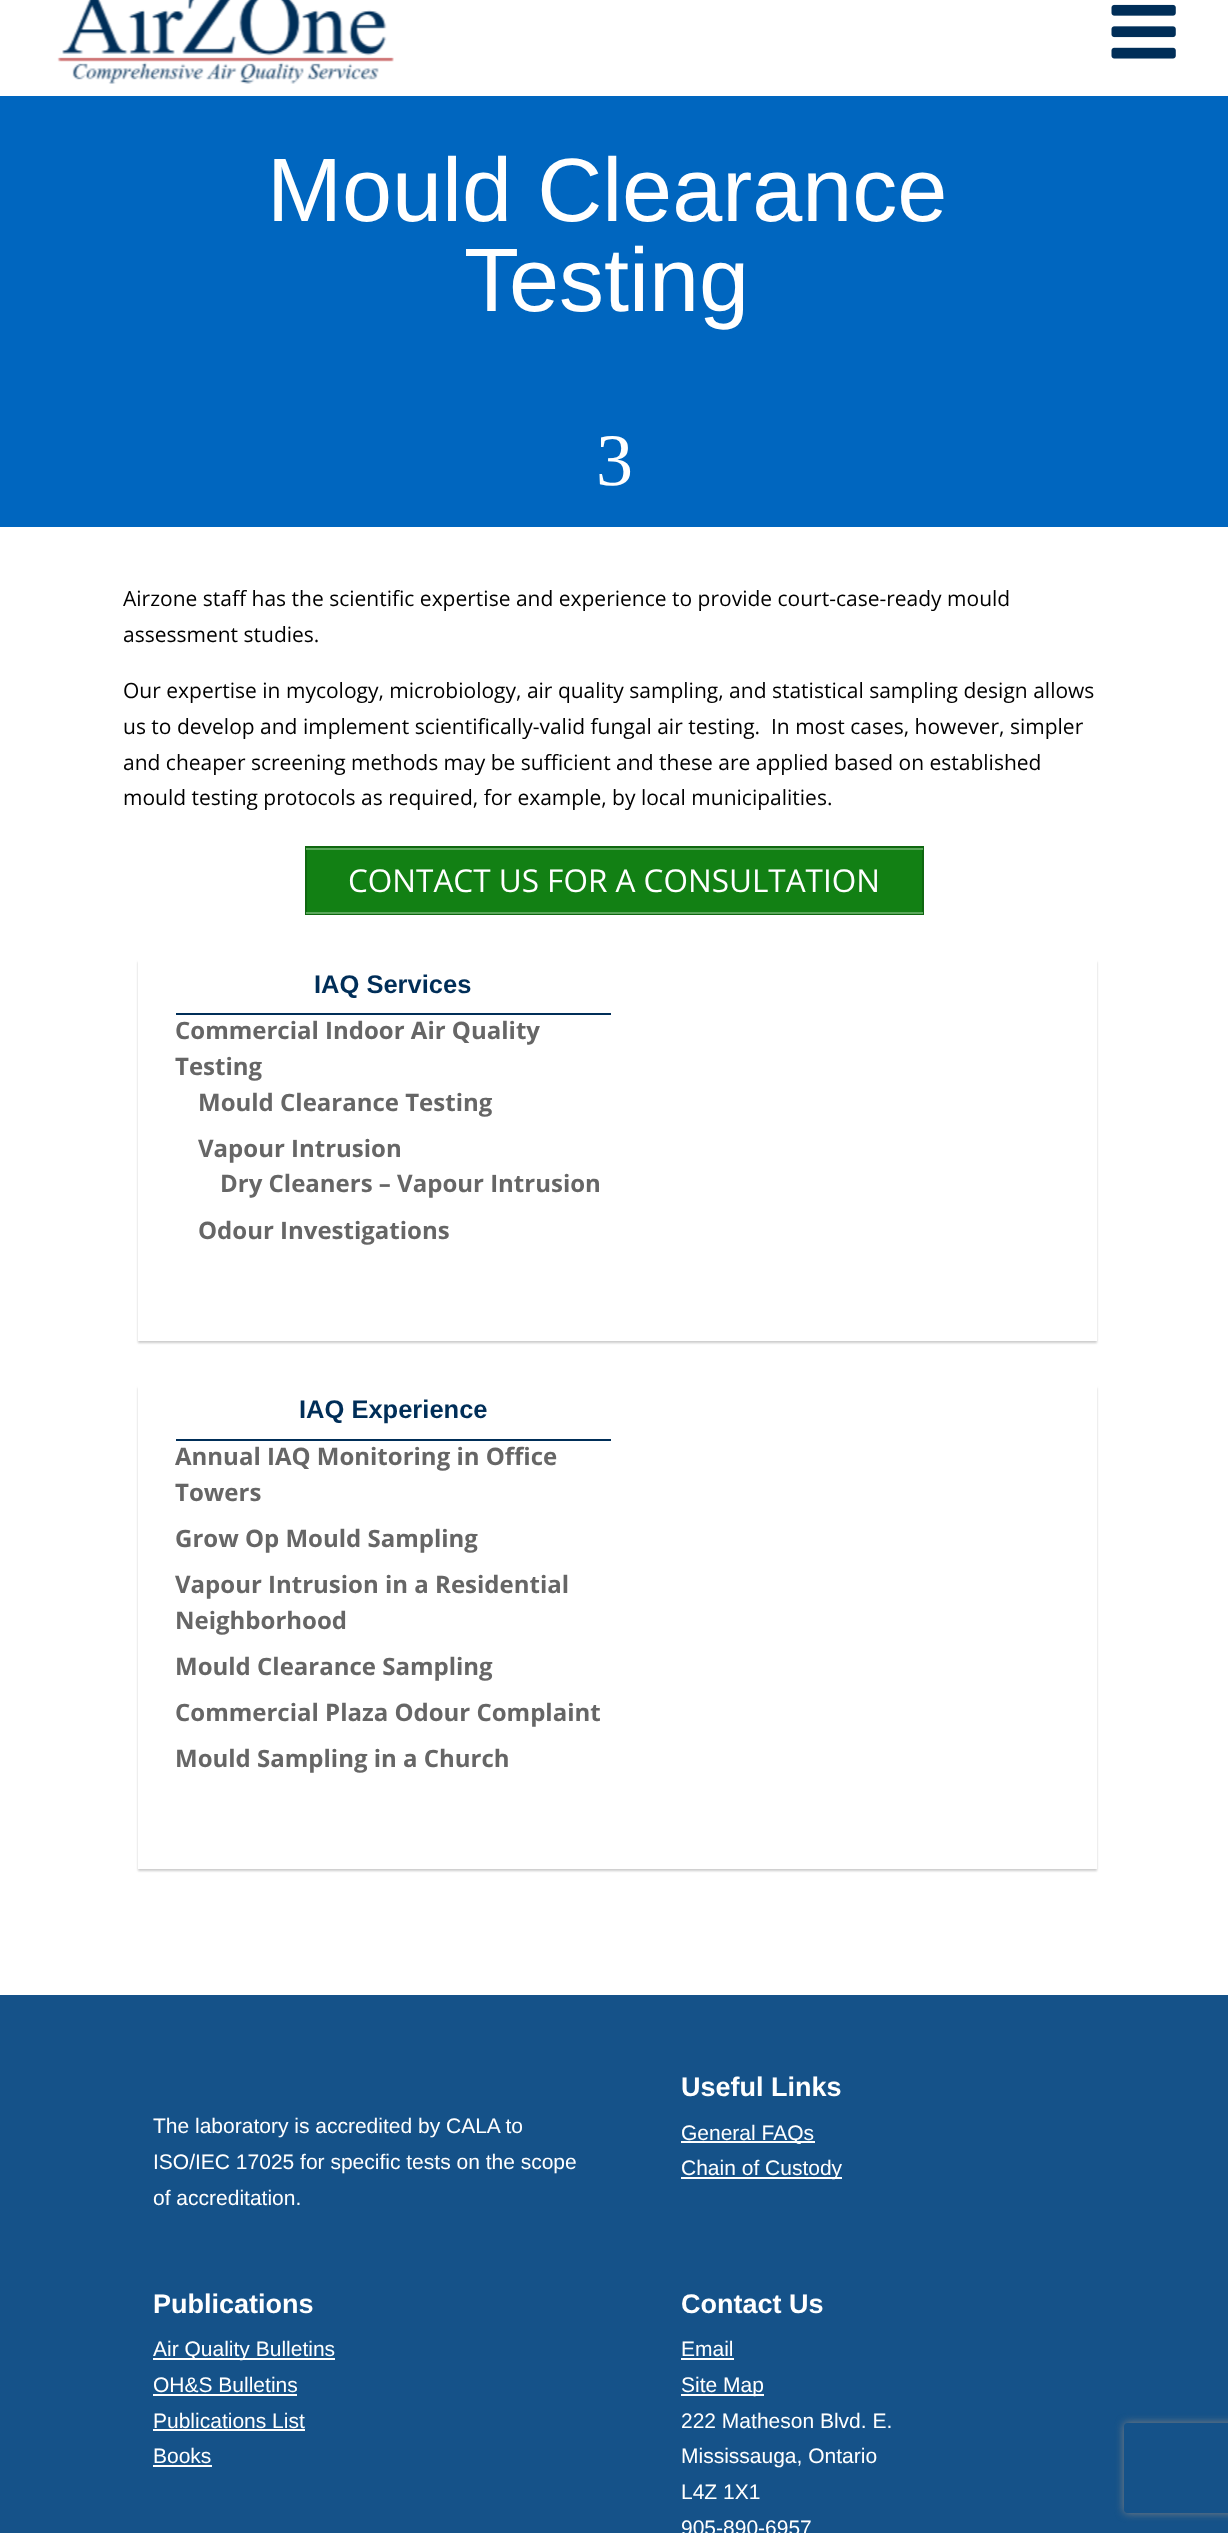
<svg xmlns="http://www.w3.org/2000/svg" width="1228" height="2533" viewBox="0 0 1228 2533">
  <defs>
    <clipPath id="clip1"><path d="M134 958H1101V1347H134ZM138 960H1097V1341H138Z" clip-rule="evenodd"/></clipPath>
    <clipPath id="clip2"><path d="M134 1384H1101V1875H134ZM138 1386H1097V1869H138Z" clip-rule="evenodd"/></clipPath>
    <clipPath id="clip3"><path d="M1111 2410H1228V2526H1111ZM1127 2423H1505C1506.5 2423 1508 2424.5 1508 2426V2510C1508 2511.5 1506.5 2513 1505 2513H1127C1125.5 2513 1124 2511.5 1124 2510V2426C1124 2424.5 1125.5 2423 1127 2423Z" clip-rule="evenodd"/></clipPath>
  </defs>
  <rect width="100%" height="100%" fill="rgb(255,255,255)"/>
  <image x="1111" y="4" width="65" height="55" href="pic1.png"/>
  <image x="57" y="0" width="337" height="84" href="pic2.png"/>
  <rect x="0" y="96" width="1228" height="431" fill="rgb(0,102,191)"/>
  <g font-family="Liberation Sans" font-size="90" fill="rgb(255,255,255)">
    <text x="267" y="221">Mould Clearance</text>
    <text x="464" y="311">Testing</text>
  </g>
  <text x="596" y="485" font-family="Liberation Serif" font-size="74" fill="rgb(255,255,255)">3</text>
  <g font-family="Open Sans" font-size="21" fill="rgb(0,0,0)">
    <text>
      <tspan x="123" y="606">Airzone staff has the scientific expertise and experience to provide court-case-ready mould</tspan>
      <tspan x="123" y="642">assessment studies.</tspan>
    </text>
    <text xml:space="preserve"><tspan x="123" y="698">Our expertise in mycology, microbiology, air quality sampling, and statistical sampling design allows</tspan><tspan x="123" y="734">us to develop and implement scientifically-valid fungal air testing.  In most cases, however, simpler</tspan><tspan x="123" y="770">and cheaper screening methods may be sufficient and these are applied based on established</tspan><tspan x="123" y="805">mould testing protocols as required, for example, by local municipalities.</tspan></text>
  </g>
  <rect x="307" y="850" width="615" height="62" fill="rgb(18,128,20)"/>
  <rect x="306" y="847" width="617" height="67" fill="none" stroke="rgb(15,103,16)" stroke-width="2"/>
  <rect x="306" y="848" width="617" height="2" fill="rgb(90,167,91)"/>
  <rect x="306" y="912" width="617" height="2" fill="rgb(90,167,91)"/>
  <text x="348" y="892" font-family="Open Sans" font-size="31.5" fill="rgb(255,255,255)">CONTACT US FOR A CONSULTATION</text>
  <g clip-path="url(#clip1)">
    <rect x="138" y="962" width="959" height="381" fill="rgb(204,204,204)" filter="blur(1px)"/>
  </g>
  <rect x="176" y="1013" width="435" height="2" fill="rgb(0,46,88)"/>
  <text x="314" y="993" font-family="Liberation Sans" font-size="25.5" font-weight="bold" fill="rgb(0,46,88)">IAQ Services</text>
  <g font-family="Open Sans" font-size="24" font-weight="bold" fill="rgb(102,102,102)">
    <text>
      <tspan x="175" y="1039">Commercial Indoor Air Quality</tspan>
      <tspan x="175" y="1075">Testing</tspan>
    </text>
    <text>
      <tspan x="198" y="1111">Mould Clearance Testing</tspan>
      <tspan x="198" y="1157">Vapour Intrusion</tspan>
    </text>
    <text x="220" y="1192">Dry Cleaners – Vapour Intrusion</text>
    <text x="198" y="1239">Odour Investigations</text>
  </g>
  <g clip-path="url(#clip2)">
    <rect x="138" y="1388" width="959" height="483" fill="rgb(204,204,204)" filter="blur(1px)"/>
  </g>
  <rect x="176" y="1439" width="435" height="2" fill="rgb(0,46,88)"/>
  <text x="299" y="1418" font-family="Liberation Sans" font-size="25.5" font-weight="bold" fill="rgb(0,46,88)">IAQ Experience</text>
  <g font-family="Open Sans" font-size="24" font-weight="bold" fill="rgb(102,102,102)">
    <text>
      <tspan x="175" y="1465">Annual IAQ Monitoring in Office</tspan>
      <tspan x="175" y="1501">Towers</tspan>
      <tspan x="175" y="1547">Grow Op Mould Sampling</tspan>
      <tspan x="175" y="1593">Vapour Intrusion in a Residential</tspan>
      <tspan x="175" y="1629">Neighborhood</tspan>
      <tspan x="175" y="1675">Mould Clearance Sampling</tspan>
      <tspan x="175" y="1721">Commercial Plaza Odour Complaint</tspan>
      <tspan x="175" y="1767">Mould Sampling in a Church</tspan>
    </text>
  </g>
  <rect x="0" y="1995" width="1228" height="538" fill="rgb(21,82,137)"/>
  <g font-family="Liberation Sans" font-size="21" fill="rgb(255,255,255)">
    <text>
      <tspan x="153" y="2133">The laboratory is accredited by CALA to</tspan>
      <tspan x="153" y="2169">ISO/IEC 17025 for specific tests on the scope</tspan>
      <tspan x="153" y="2205">of accreditation.</tspan>
    </text>
  </g>
  <text x="681" y="2096" font-family="Liberation Sans" font-size="27" font-weight="bold" fill="rgb(255,255,255)">Useful Links</text>
  <rect x="681" y="2141" width="134" height="2" fill="rgb(255,255,255)"/>
  <text x="681" y="2140" font-family="Liberation Sans" font-size="21" fill="rgb(255,255,255)">General FAQs</text>
  <rect x="681" y="2177" width="161" height="2" fill="rgb(255,255,255)"/>
  <text x="681" y="2175" font-family="Liberation Sans" font-size="21" fill="rgb(255,255,255)">Chain of Custody</text>
  <text x="153" y="2313" font-family="Liberation Sans" font-size="27" font-weight="bold" fill="rgb(255,255,255)">Publications</text>
  <rect x="153" y="2358" width="182" height="2" fill="rgb(255,255,255)"/>
  <g font-family="Liberation Sans" font-size="21" fill="rgb(255,255,255)">
    <text>
      <tspan x="153" y="2356">Air Quality Bulletins</tspan>
      <tspan x="153" y="2392">OH&amp;S Bulletins</tspan>
    </text>
  </g>
  <rect x="153" y="2394" width="144" height="2" fill="rgb(255,255,255)"/>
  <text x="153" y="2428" font-family="Liberation Sans" font-size="21" fill="rgb(255,255,255)">Publications List</text>
  <rect x="153" y="2429" width="152" height="2" fill="rgb(255,255,255)"/>
  <text x="153" y="2463" font-family="Liberation Sans" font-size="21" fill="rgb(255,255,255)">Books</text>
  <rect x="153" y="2465" width="59" height="2" fill="rgb(255,255,255)"/>
  <text x="681" y="2313" font-family="Liberation Sans" font-size="27" font-weight="bold" fill="rgb(255,255,255)">Contact Us</text>
  <text x="681" y="2356" font-family="Liberation Sans" font-size="21" fill="rgb(255,255,255)">Email</text>
  <rect x="681" y="2358" width="53" height="2" fill="rgb(255,255,255)"/>
  <rect x="681" y="2394" width="83" height="2" fill="rgb(255,255,255)"/>
  <g font-family="Liberation Sans" font-size="21" fill="rgb(255,255,255)">
    <text>
      <tspan x="681" y="2392">Site Map</tspan>
      <tspan x="681" y="2428">222 Matheson Blvd. E.</tspan>
      <tspan x="681" y="2463">Mississauga, Ontario</tspan>
      <tspan x="681" y="2499">L4Z 1X1</tspan>
      <tspan x="681" y="2535">905-890-6957</tspan>
    </text>
  </g>
  <g clip-path="url(#clip3)">
    <rect x="1124" y="2423" width="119" height="90" rx="3" fill="rgb(128,128,128)" filter="blur(4px)"/>
  </g>
</svg>
